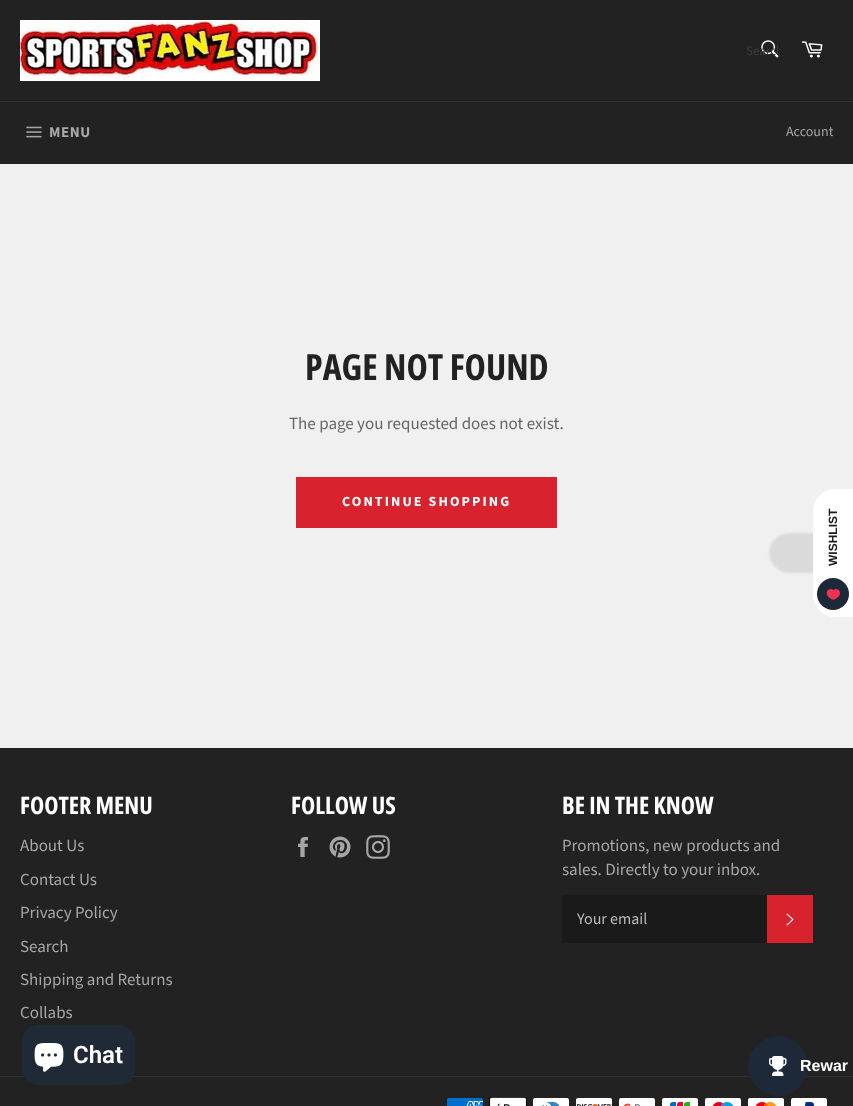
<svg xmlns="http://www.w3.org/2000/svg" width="853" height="1106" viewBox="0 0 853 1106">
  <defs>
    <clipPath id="clip1"><rect x="746" y="42" width="32" height="18"/></clipPath>
  </defs>
  <rect width="100%" height="100%" fill="rgb(240,240,240)"/>
  <rect x="0" y="0" width="853" height="101" fill="rgb(34,34,34)"/>
  <image x="20" y="20" width="300" height="61" href="pic1.png"/>
  <image x="761" y="40" width="18" height="18" href="pic2.png"/>
  <g clip-path="url(#clip1)">
    <text x="746" y="55" font-family="Source Sans Pro" font-size="13" fill="rgb(60,60,60)">Search</text>
  </g>
  <image x="801" y="41" width="22" height="17" href="pic3.png"/>
  <rect x="0" y="102" width="853" height="62" fill="rgb(34,34,34)"/>
  <rect x="0" y="101" width="853" height="1" fill="rgb(47,47,47)"/>
  <image x="26" y="126" width="16" height="12" href="pic4.png"/>
  <text x="49" y="137" font-family="Source Sans Pro" font-size="15" font-weight="bold" letter-spacing="0.5" fill="rgb(167,167,167)">MENU</text>
  <text x="786" y="136" font-family="Source Sans Pro" font-size="14" fill="rgb(167,167,167)">Account</text>
  <text x="305" y="380" font-family="Open Sans Condensed" font-size="36" font-weight="bold" fill="rgb(34,34,34)">PAGE NOT FOUND</text>
  <text x="289" y="429" font-family="Source Sans Pro" font-size="17" fill="rgb(102,102,102)">The page you requested does not exist.</text>
  <rect x="296" y="477" width="261" height="51" fill="rgb(216,35,47)"/>
  <text x="342" y="506" font-family="Source Sans Pro" font-size="14" font-weight="bold" letter-spacing="2.1" fill="rgb(255,255,255)">CONTINUE SHOPPING</text>
  <rect x="0" y="748" width="853" height="358" fill="rgb(34,34,34)"/>
  <text x="20" y="814" font-family="Open Sans Condensed" font-size="24" font-weight="bold" fill="rgb(255,255,255)">FOOTER MENU</text>
  <g font-family="Source Sans Pro" font-size="17" fill="rgb(167,167,167)">
    <text x="20" y="851">About Us</text>
    <text>
      <tspan x="20" y="885">Contact Us</tspan>
      <tspan x="20" y="918">Privacy Policy</tspan>
    </text>
    <text>
      <tspan x="20" y="952">Search</tspan>
      <tspan x="20" y="985">Shipping and Returns</tspan>
      <tspan x="20" y="1018">Collabs</tspan>
    </text>
  </g>
  <text x="291" y="814" font-family="Open Sans Condensed" font-size="24" font-weight="bold" fill="rgb(255,255,255)">FOLLOW US</text>
  <image x="298" y="837" width="10" height="20" href="pic5.png"/>
  <image x="329" y="836" width="22" height="22" href="pic6.png"/>
  <image x="366" y="835" width="24" height="24" href="pic7.png"/>
  <text x="562" y="814" font-family="Open Sans Condensed" font-size="24" font-weight="bold" fill="rgb(255,255,255)">BE IN THE KNOW</text>
  <g font-family="Source Sans Pro" font-size="17" fill="rgb(167,167,167)">
    <text>
      <tspan x="562" y="851">Promotions, new products and</tspan>
      <tspan x="562" y="875">sales. Directly to your inbox.</tspan>
    </text>
  </g>
  <rect x="562" y="895" width="205" height="48" fill="rgb(26,26,26)"/>
  <text x="577" y="924" font-family="Source Sans Pro" font-size="16" fill="rgb(186,186,186)">Your email</text>
  <rect x="767" y="895" width="46" height="48" fill="rgb(216,35,47)"/>
  <image x="786" y="913" width="8" height="13" href="pic8.png"/>
  <rect x="0" y="1076" width="853" height="1" fill="rgb(47,47,47)"/>
  <image x="447" y="1098" width="36" height="8" href="pic9.png"/>
  <image x="489" y="1097" width="38" height="9" href="pic10.png"/>
  <image x="533" y="1098" width="36" height="8" href="pic11.png"/>
  <image x="576" y="1098" width="36" height="8" href="pic12.png"/>
  <image x="619" y="1098" width="36" height="8" href="pic13.png"/>
  <image x="662" y="1098" width="36" height="8" href="pic14.png"/>
  <image x="705" y="1098" width="36" height="8" href="pic15.png"/>
  <image x="748" y="1098" width="36" height="8" href="pic16.png"/>
  <image x="791" y="1098" width="36" height="8" href="pic17.png"/>
  <rect x="769" y="533" width="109" height="40" rx="22" fill="rgb(218,218,218)" filter="blur(1px)"/>
  <path d="M813 595V511C813 499 823 489 835 489H853V617H835C823 617 813 607 813 595Z" fill="rgb(255,255,255)"/>
  <text x="837" y="566" transform="rotate(-90 837 566)" font-family="Liberation Sans" font-size="12" font-weight="bold" fill="rgb(26,26,26)">WISHLIST</text>
  <circle cx="833" cy="594" r="16" fill="rgb(29,41,57)"/>
  <image x="826" y="589" width="14" height="11" href="pic18.png"/>
  <circle cx="778" cy="1066" r="30" fill="rgb(29,41,57)"/>
  <image x="769" y="1056" width="18" height="20" href="pic19.png"/>
  <text x="800" y="1071" font-family="Liberation Sans" font-size="16" font-weight="bold" fill="rgb(255,255,255)">Rewar</text>
  <rect x="22" y="1025" width="113" height="60" rx="16" fill="rgb(32,42,54)"/>
  <image x="34" y="1043" width="30" height="29" href="pic20.png"/>
  <text x="73" y="1063" font-family="Roboto" font-size="24" font-weight="600" fill="rgb(255,255,255)">Chat</text>
</svg>
